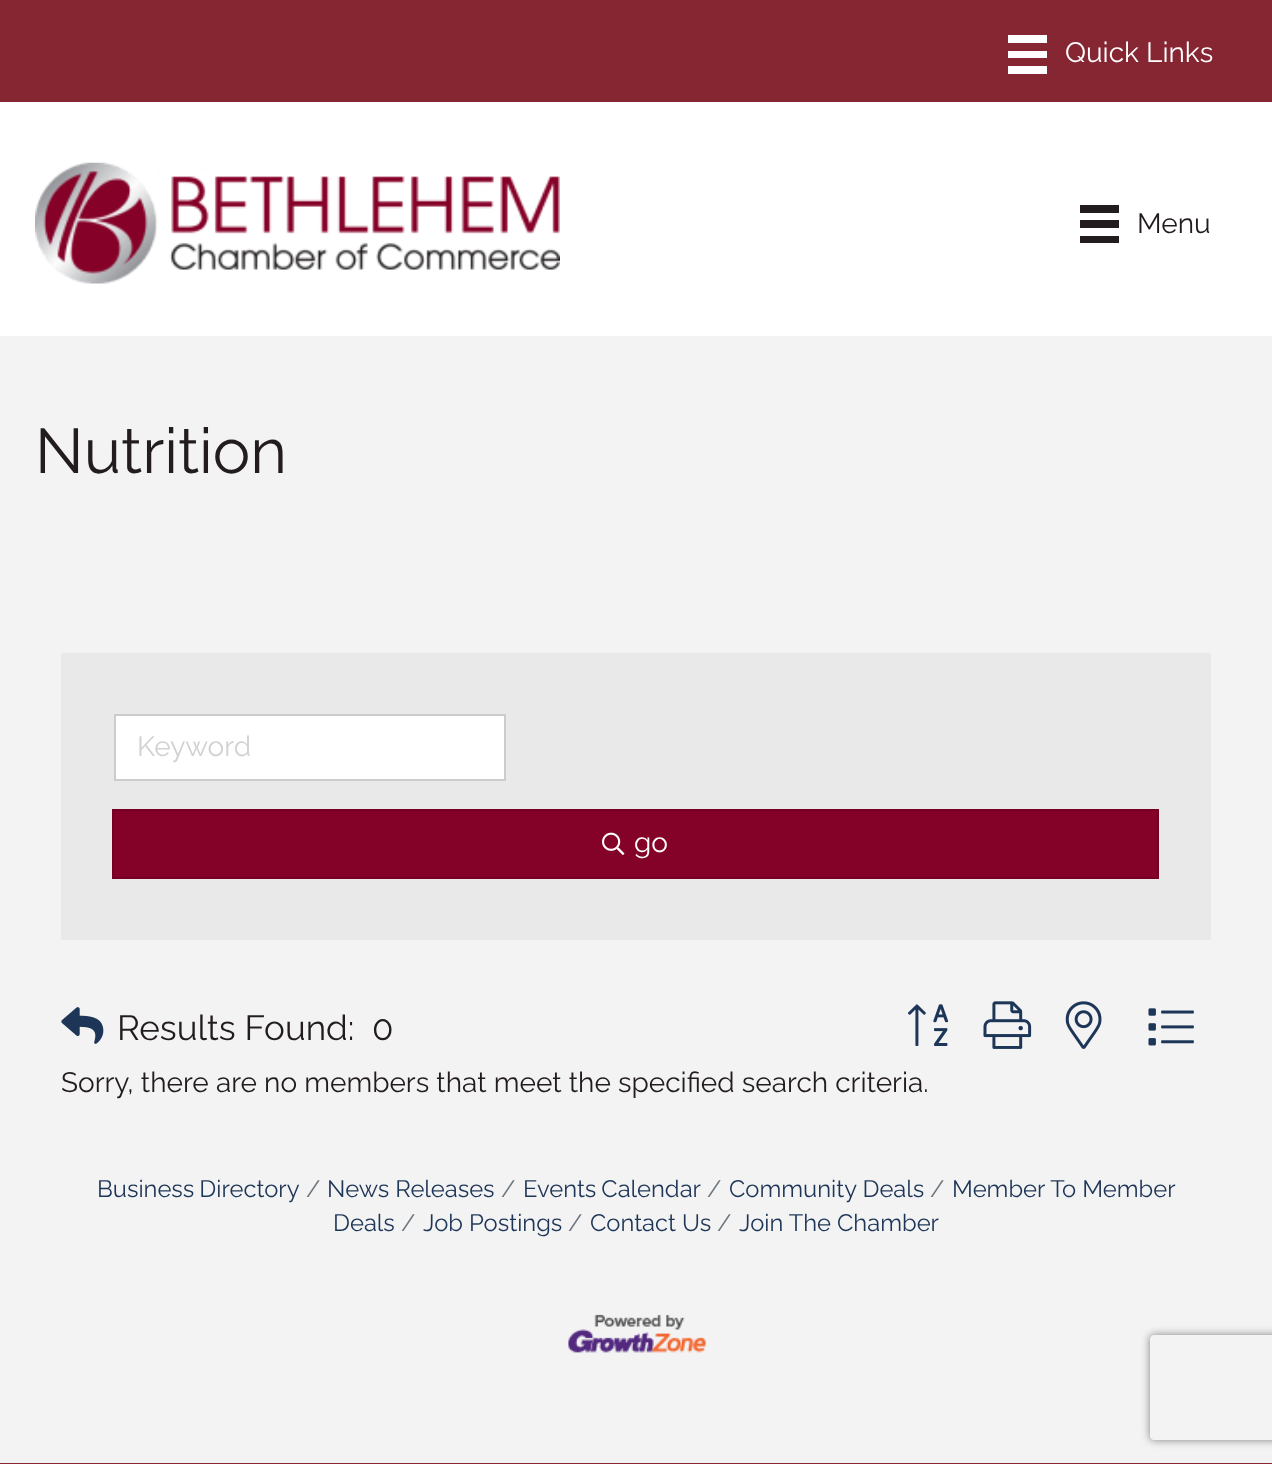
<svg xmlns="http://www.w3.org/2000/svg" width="1272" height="1464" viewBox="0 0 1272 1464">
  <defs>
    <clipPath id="clip1"><path d="M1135 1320H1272V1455H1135ZM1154 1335H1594C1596 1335 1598 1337 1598 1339V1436C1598 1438 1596 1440 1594 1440H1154C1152 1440 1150 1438 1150 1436V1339C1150 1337 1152 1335 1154 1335Z" clip-rule="evenodd"/></clipPath>
  </defs>
  <rect width="100%" height="100%" fill="rgb(255,255,255)"/>
  <rect x="0" y="0" width="1272" height="102" fill="rgb(134,38,51)"/>
  <rect x="1008" y="35" width="39" height="8" fill="rgb(255,255,255)"/>
  <rect x="1008" y="51" width="39" height="7" fill="rgb(255,255,255)"/>
  <rect x="1008" y="66" width="39" height="8" fill="rgb(255,255,255)"/>
  <text x="1065" y="62" font-family="Raleway" font-size="28" fill="rgb(255,255,255)">Quick Links</text>
  <image x="35" y="162" width="525" height="122" href="pic1.png"/>
  <rect x="1080" y="205" width="39" height="8" fill="rgb(34,28,30)"/>
  <rect x="1080" y="220" width="39" height="8" fill="rgb(34,28,30)"/>
  <rect x="1080" y="236" width="39" height="7" fill="rgb(34,28,30)"/>
  <text x="1137" y="233" font-family="Raleway" font-size="28" fill="rgb(34,28,30)">Menu</text>
  <rect x="0" y="336" width="1272" height="1127" fill="rgb(243,243,243)"/>
  <text x="35" y="473" font-family="Raleway" font-size="63" fill="rgb(34,28,30)">Nutrition</text>
  <rect x="61" y="653" width="1150" height="287" fill="rgb(233,233,233)"/>
  <rect x="115" y="715" width="390" height="65" fill="rgb(255,255,255)" stroke="rgb(204,204,204)" stroke-width="2"/>
  <text x="137" y="756" font-family="Raleway" font-size="28" fill="rgb(210,210,210)">Keyword</text>
  <rect x="113" y="810" width="1045" height="68" fill="rgb(132,1,40)" stroke="rgb(116,1,35)" stroke-width="2"/>
  <image x="602" y="832" width="23" height="23" href="pic2.png"/>
  <text x="634" y="852" font-family="Raleway" font-size="28" fill="rgb(255,255,255)">go</text>
  <image x="61" y="1007" width="43" height="37" href="pic3.png"/>
  <g font-family="Raleway" font-size="35" fill="rgb(34,28,30)">
    <text x="117" y="1040">Results Found:</text>
    <text x="372" y="1040">0</text>
  </g>
  <image x="908" y="1004" width="41" height="42" href="pic4.png"/>
  <image x="983" y="1001" width="49" height="48" href="pic5.png"/>
  <image x="1065" y="1001" width="37" height="48" href="pic6.png"/>
  <image x="1148" y="1008" width="46" height="38" href="pic7.png"/>
  <text x="61" y="1092" font-family="Raleway" font-size="28" fill="rgb(34,28,30)">Sorry, there are no members that meet the specified search criteria.</text>
  <text x="97" y="1197" word-spacing="-1" font-family="Raleway" font-size="23.75" fill="rgb(29,53,87)">Business Directory</text>
  <text x="306" y="1197" font-family="Raleway" font-size="23.75" fill="rgb(108,117,125)">/</text>
  <text x="327" y="1197" font-family="Raleway" font-size="23.75" fill="rgb(29,53,87)">News Releases</text>
  <text x="930" y="1197" font-family="Raleway" font-size="23.75" fill="rgb(108,117,125)">/</text>
  <g font-family="Raleway" font-size="23.75" fill="rgb(29,53,87)">
    <text x="952" y="1197">Member To Member</text>
    <text x="333" y="1231">Deals</text>
  </g>
  <text x="501" y="1197" font-family="Raleway" font-size="23.75" fill="rgb(108,117,125)">/</text>
  <text x="523" y="1197" word-spacing="-1" font-family="Raleway" font-size="23.75" fill="rgb(29,53,87)">Events Calendar</text>
  <text x="707" y="1197" font-family="Raleway" font-size="23.75" fill="rgb(108,117,125)">/</text>
  <text x="729" y="1197" font-family="Raleway" font-size="23.75" fill="rgb(29,53,87)">Community Deals</text>
  <text x="401" y="1231" font-family="Raleway" font-size="23.75" fill="rgb(108,117,125)">/</text>
  <text x="423" y="1231" font-family="Raleway" font-size="23.75" fill="rgb(29,53,87)">Job Postings</text>
  <text x="568" y="1231" font-family="Raleway" font-size="23.75" fill="rgb(108,117,125)">/</text>
  <text x="590" y="1231" font-family="Raleway" font-size="23.75" fill="rgb(29,53,87)">Contact Us</text>
  <text x="717" y="1231" font-family="Raleway" font-size="23.75" fill="rgb(108,117,125)">/</text>
  <text x="739" y="1231" font-family="Raleway" font-size="23.75" fill="rgb(29,53,87)">Join The Chamber</text>
  <image x="568" y="1314" width="138" height="39" href="pic8.png"/>
  <rect x="0" y="1463" width="1272" height="1" fill="rgb(134,38,51)"/>
  <g clip-path="url(#clip1)">
    <rect x="1150" y="1335" width="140" height="105" rx="4" fill="rgb(128,128,128)" filter="blur(4.5px)"/>
  </g>
</svg>
